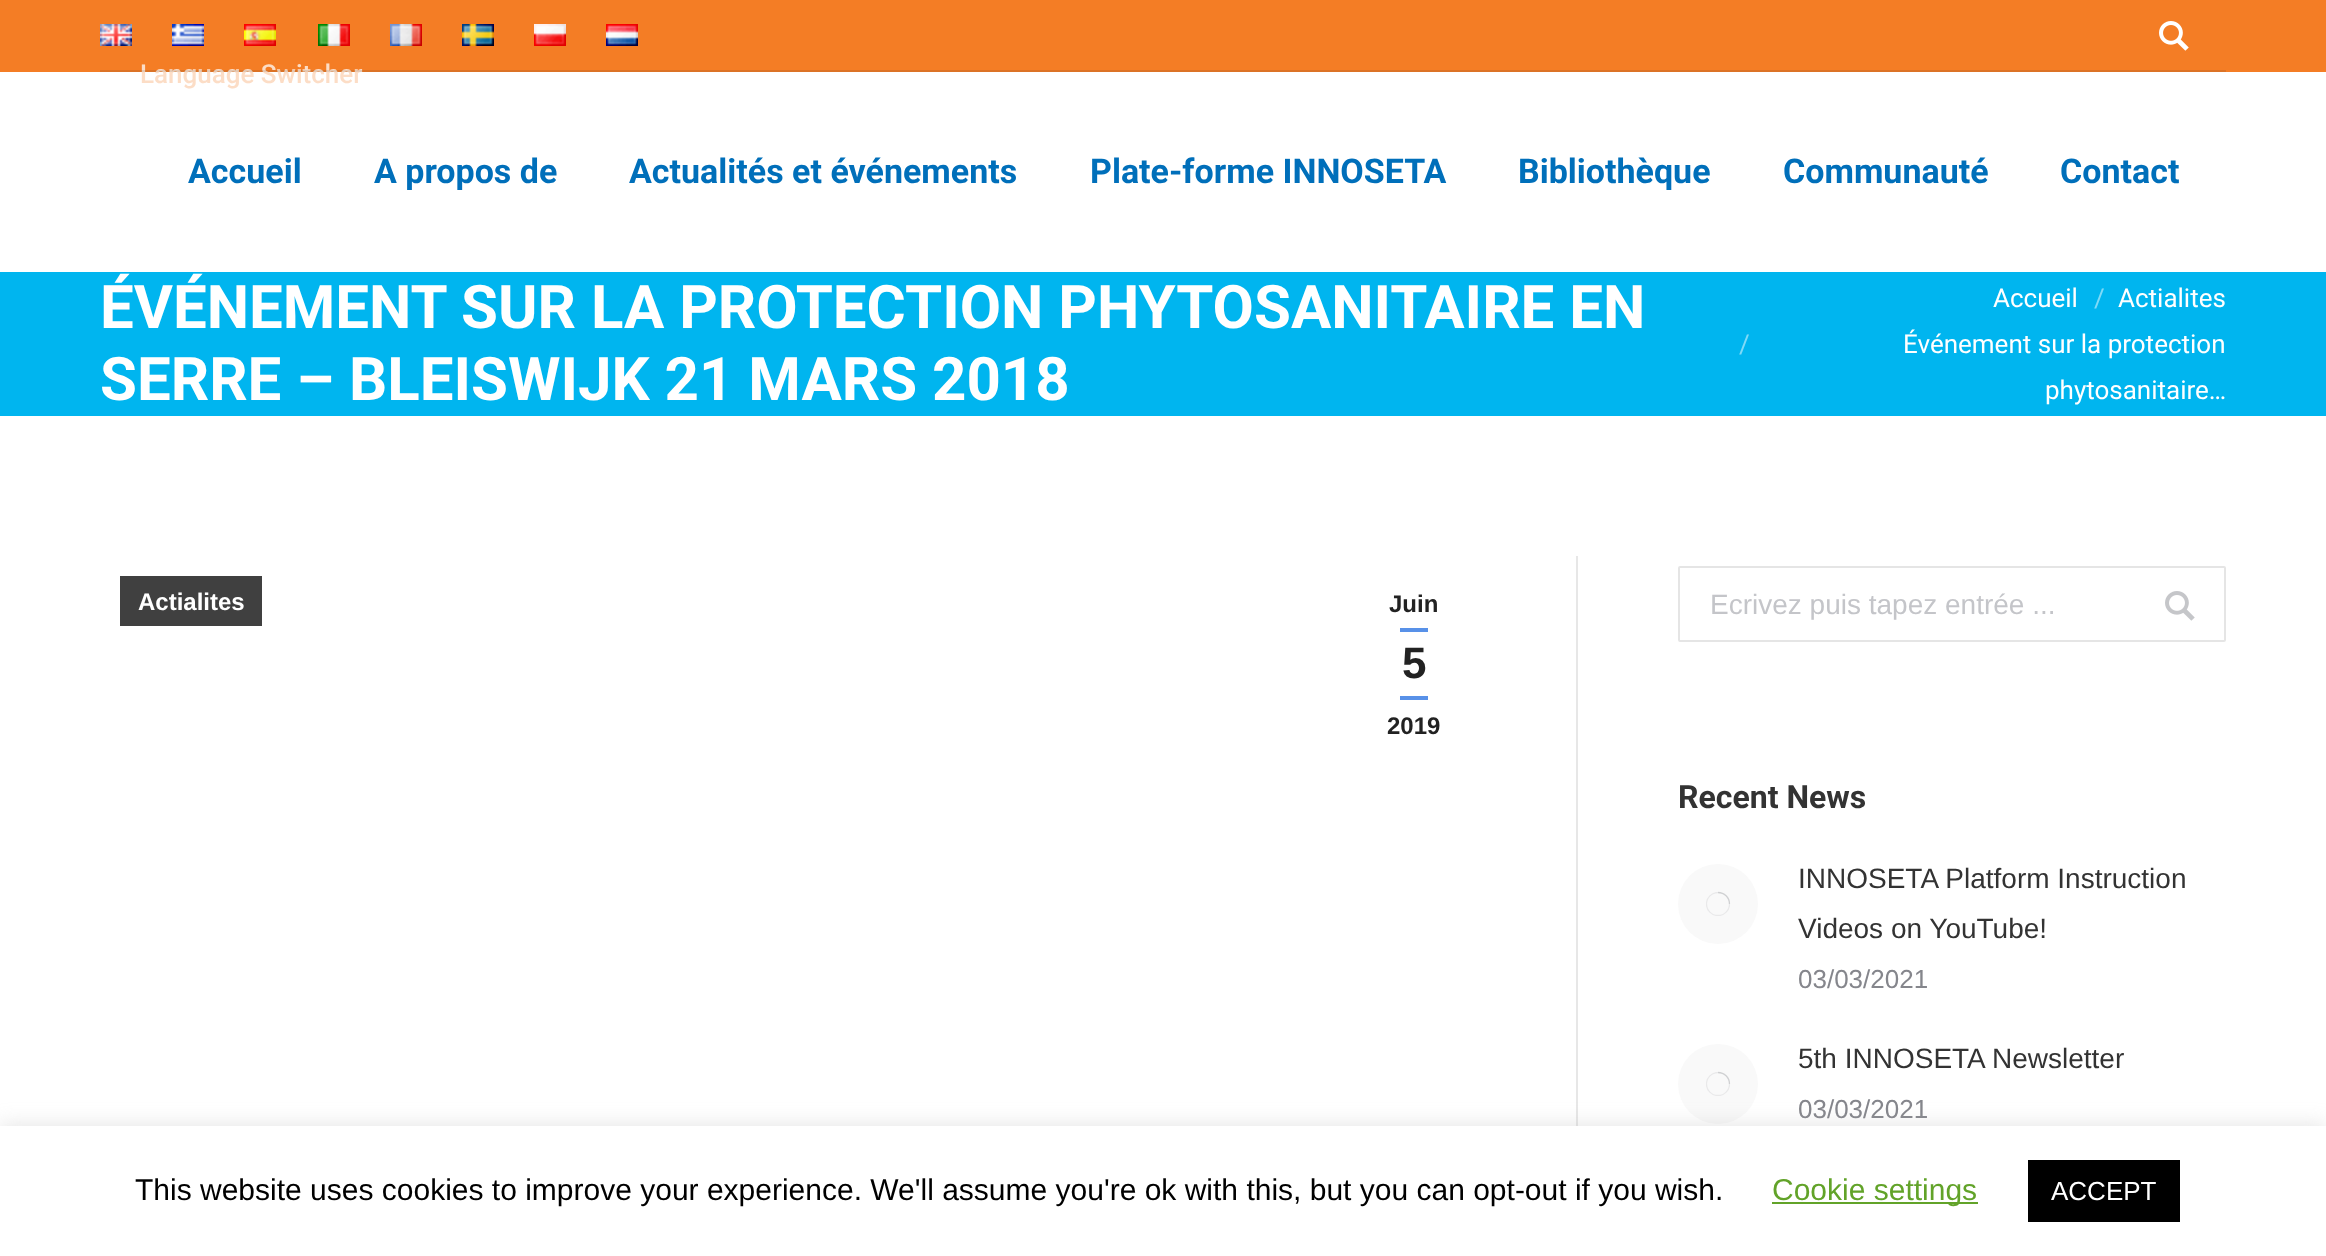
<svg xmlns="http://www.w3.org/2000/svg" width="2326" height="1256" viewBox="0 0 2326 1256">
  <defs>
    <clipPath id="clip1"><rect x="1706" y="892" width="24" height="24"/></clipPath>
    <clipPath id="clip2"><rect x="1706" y="1072" width="24" height="24"/></clipPath>
  </defs>
  <rect width="100%" height="100%" fill="rgb(255,255,255)"/>
  <rect x="0" y="0" width="2326" height="72" fill="rgb(244,125,37)"/>
  <image x="2159" y="21" width="30" height="30" href="pic1.png"/>
  <image x="100" y="24" width="32" height="22" href="pic2.png"/>
  <image x="172" y="24" width="32" height="22" href="pic3.png"/>
  <image x="244" y="24" width="32" height="22" href="pic4.png"/>
  <image x="318" y="24" width="32" height="22" href="pic5.png"/>
  <image x="390" y="24" width="32" height="22" href="pic6.png"/>
  <image x="462" y="24" width="32" height="22" href="pic7.png"/>
  <image x="534" y="24" width="32" height="22" href="pic8.png"/>
  <image x="606" y="24" width="32" height="22" href="pic9.png"/>
  <text x="140" y="83" font-family="Roboto" font-size="26" font-weight="500" fill="rgb(252,221,198)">Language Switcher</text>
  <rect x="100" y="70" width="2126" height="2" fill="rgba(51,51,51,0.12)"/>
  <g font-family="Roboto" font-size="34" font-weight="bold" fill="rgb(0,111,186)">
    <text x="188" y="183">Accueil</text>
    <text x="374" y="183">A propos de</text>
    <text x="629" y="183">Actualités et événements</text>
    <text x="1090" y="183">Plate-forme INNOSETA</text>
    <text x="1518" y="183">Bibliothèque</text>
    <text x="1783" y="183">Communauté</text>
    <text x="2060" y="183">Contact</text>
  </g>
  <rect x="0" y="272" width="2326" height="144" fill="rgb(0,181,239)"/>
  <g font-family="Roboto" font-size="60" font-weight="bold" fill="rgb(255,255,255)">
    <text>
      <tspan x="100" y="328">ÉVÉNEMENT SUR LA PROTECTION PHYTOSANITAIRE EN</tspan>
      <tspan x="100" y="400">SERRE – BLEISWIJK 21 MARS 2018</tspan>
    </text>
  </g>
  <text x="1993" y="307" font-family="Roboto" font-size="26" fill="rgb(255,255,255)">Accueil</text>
  <text x="2094" y="307" font-family="Roboto" font-size="26" fill="rgb(128,218,247)">/</text>
  <text x="2118" y="307" font-family="Roboto" font-size="26" fill="rgb(255,255,255)">Actialites</text>
  <text x="1739" y="353" font-family="Roboto" font-size="26" fill="rgb(128,218,247)">/</text>
  <g font-family="Roboto" font-size="26" fill="rgb(255,255,255)">
    <text x="1903" y="353">Événement sur la protection</text>
    <text x="2045" y="399">phytosanitaire…</text>
  </g>
  <rect x="120" y="576" width="142" height="50" fill="rgb(64,64,64)"/>
  <text x="138" y="610" font-family="Liberation Sans" font-size="24" font-weight="bold" fill="rgb(255,255,255)">Actialites</text>
  <text x="1389" y="612" font-family="Liberation Sans" font-size="24" font-weight="bold" fill="rgb(34,34,34)">Juin</text>
  <rect x="1400" y="628" width="28" height="4" fill="rgb(88,145,232)"/>
  <text x="1402" y="678" font-family="Liberation Sans" font-size="44" font-weight="bold" fill="rgb(34,34,34)">5</text>
  <rect x="1400" y="696" width="28" height="4" fill="rgb(88,145,232)"/>
  <text x="1387" y="734" font-family="Liberation Sans" font-size="24" font-weight="bold" fill="rgb(34,34,34)">2019</text>
  <rect x="1576" y="556" width="2" height="570" fill="rgb(231,231,231)"/>
  <rect x="1679" y="567" width="546" height="74" rx="1" fill="none" stroke="rgb(229,229,229)" stroke-width="2"/>
  <text x="1710" y="614" font-family="Liberation Sans" font-size="28" fill="rgb(196,197,201)">Ecrivez puis tapez entrée ...</text>
  <image x="2165" y="591" width="30" height="30" href="pic10.png"/>
  <text x="1678" y="808" font-family="Roboto" font-size="32" font-weight="bold" fill="rgb(51,51,51)">Recent News</text>
  <circle cx="1718" cy="904" r="40" fill="rgb(249,249,249)"/>
  <g clip-path="url(#clip1)">
    <circle cx="1718" cy="904" r="11.5" fill="none" stroke="rgb(233,233,234)" stroke-width="1.3"/>
  </g>
  <path d="M1729.5 904C1729.5 897.5 1724.5 892.5 1718 892.5" fill="none" stroke="rgba(133,134,140,0.25)" stroke-width="1.3"/>
  <g font-family="Liberation Sans" font-size="28" fill="rgb(51,51,51)">
    <text>
      <tspan x="1798" y="888">INNOSETA Platform Instruction</tspan>
      <tspan x="1798" y="938">Videos on YouTube!</tspan>
    </text>
  </g>
  <text x="1798" y="988" font-family="Liberation Sans" font-size="26" fill="rgb(133,134,140)">03/03/2021</text>
  <circle cx="1718" cy="1084" r="40" fill="rgb(249,249,249)"/>
  <g clip-path="url(#clip2)">
    <circle cx="1718" cy="1084" r="11.5" fill="none" stroke="rgb(233,233,234)" stroke-width="1.3"/>
  </g>
  <path d="M1729.5 1084C1729.5 1077.5 1724.5 1072.5 1718 1072.5" fill="none" stroke="rgba(133,134,140,0.25)" stroke-width="1.3"/>
  <text x="1798" y="1068" font-family="Liberation Sans" font-size="28" fill="rgb(51,51,51)">5th INNOSETA Newsletter</text>
  <text x="1798" y="1118" font-family="Liberation Sans" font-size="26" fill="rgb(133,134,140)">03/03/2021</text>
  <rect x="0" y="1124" width="2326" height="130" fill="rgba(172,171,171,0.3)" filter="blur(10px)"/>
  <rect x="0" y="1126" width="2326" height="130" fill="rgb(255,255,255)"/>
  <text x="135" y="1200" font-family="Liberation Sans" font-size="30" fill="rgb(0,0,0)">This website uses cookies to improve your experience. We'll assume you're ok with this, but you can opt-out if you wish.</text>
  <rect x="1772" y="1202" width="206" height="2" fill="rgb(98,163,41)"/>
  <text x="1772" y="1200" font-family="Liberation Sans" font-size="30" fill="rgb(98,163,41)">Cookie settings</text>
  <rect x="2028" y="1160" width="152" height="62" fill="rgb(0,0,0)"/>
  <text x="2051" y="1200" font-family="Liberation Sans" font-size="26" fill="rgb(255,255,255)">ACCEPT</text>
</svg>
